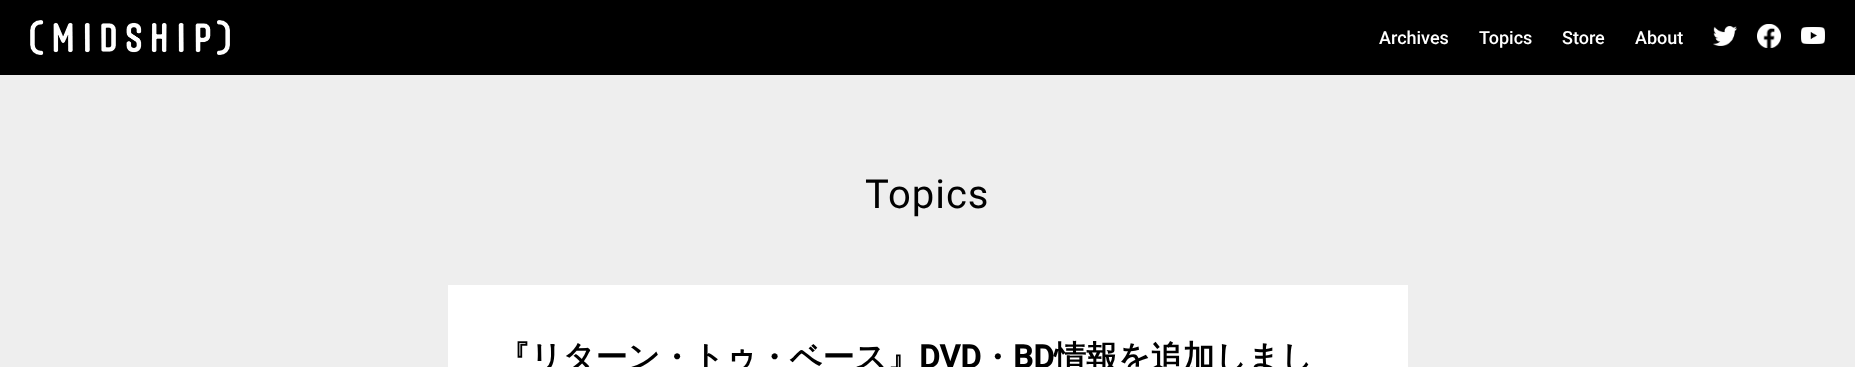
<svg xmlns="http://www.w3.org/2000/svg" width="1855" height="367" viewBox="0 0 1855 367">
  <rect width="100%" height="100%" fill="rgb(238,238,238)"/>
  <rect x="0" y="0" width="1855" height="75" fill="rgb(0,0,0)"/>
  <image x="30" y="20" width="200" height="35" href="pic1.png"/>
  <g font-family="Roboto" font-size="18" font-weight="500" fill="rgb(255,255,255)">
    <text x="1379" y="44">Archives</text>
    <text x="1479" y="44">Topics</text>
    <text x="1562" y="44">Store</text>
    <text x="1635" y="44">About</text>
  </g>
  <image x="1713" y="26" width="24" height="20" href="pic2.png"/>
  <image x="1757" y="24" width="24" height="24" href="pic3.png"/>
  <image x="1801" y="27" width="24" height="17" href="pic4.png"/>
  <text x="865" y="208" font-family="Roboto" font-size="40" letter-spacing="1" fill="rgb(0,0,0)">Topics</text>
  <rect x="448" y="285" width="960" height="82" fill="rgb(255,255,255)"/>
  <text x="498" y="368" font-family="WenQuanYi Zen Hei" font-size="32" font-weight="bold" fill="rgb(0,0,0)">『リターン・トゥ・ベース』</text>
  <text x="919" y="368" font-family="Roboto" font-size="32" font-weight="bold" fill="rgb(0,0,0)">DVD</text>
  <text x="981" y="368" font-family="WenQuanYi Zen Hei" font-size="32" font-weight="bold" fill="rgb(0,0,0)">・</text>
  <text x="1013" y="368" font-family="Roboto" font-size="32" font-weight="bold" fill="rgb(0,0,0)">BD</text>
  <text x="1054" y="368" font-family="WenQuanYi Zen Hei" font-size="32" font-weight="bold" fill="rgb(0,0,0)">情報を追加しまし</text>
</svg>
